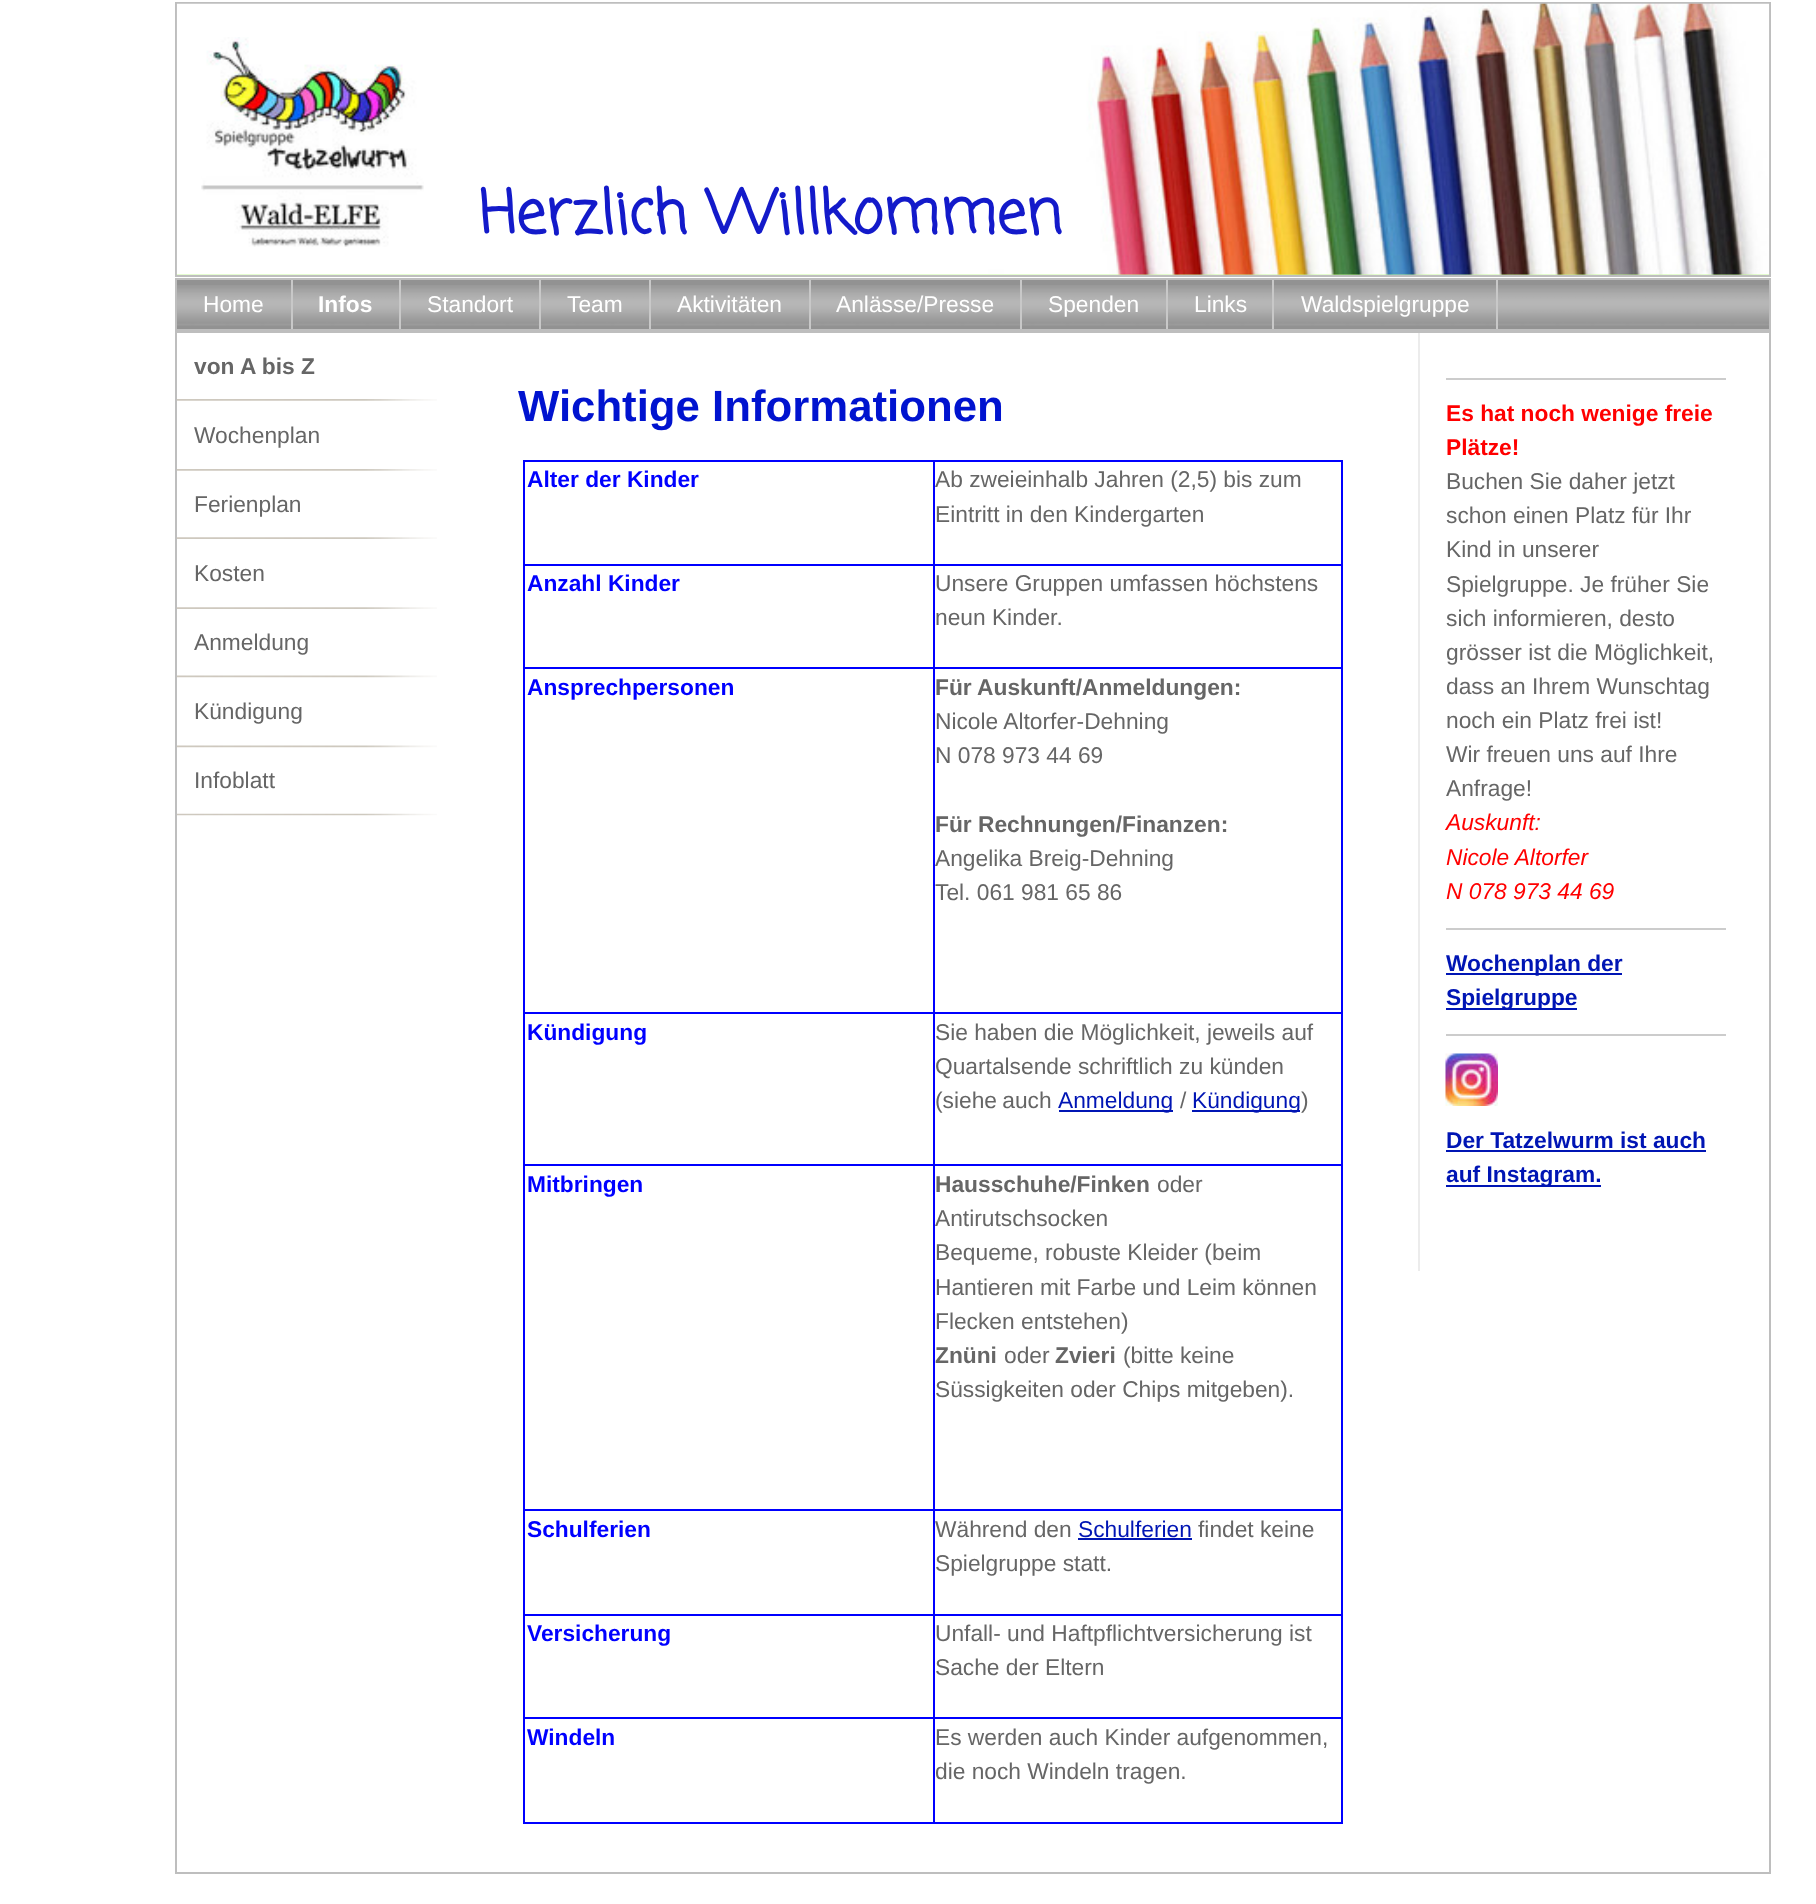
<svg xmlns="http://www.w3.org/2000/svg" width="1816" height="1904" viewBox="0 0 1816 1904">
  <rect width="100%" height="100%" fill="rgb(255,255,255)"/>
  <rect x="176" y="3" width="1594" height="273" fill="none" stroke="rgb(190,190,190)" stroke-width="2"/>
  <rect x="177" y="274" width="1592" height="1" fill="rgb(194,248,144)"/>
  <image x="176" y="3" width="1594" height="272" href="pic1.png"/>
  <image x="201" y="37" width="223" height="210" href="pic2.png"/>
  <text x="479" y="233" font-family="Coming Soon" font-size="59.5" font-weight="bold" fill="rgb(19,26,202)">Herzlich Willkommen</text>
  <rect x="177" y="280" width="1592" height="49" fill="rgb(146,146,146)"/>
  <image x="177" y="285" width="1592" height="41" href="pic3.png"/>
  <rect x="176" y="279" width="1594" height="51" fill="none" stroke="rgb(190,190,190)" stroke-width="2"/>
  <rect x="291" y="280" width="2" height="49" fill="rgb(200,200,200)"/>
  <text x="203" y="312" font-family="Liberation Sans" font-size="22.75" fill="rgb(255,255,255)">Home</text>
  <rect x="399" y="280" width="2" height="49" fill="rgb(200,200,200)"/>
  <text x="318" y="312" font-family="Liberation Sans" font-size="22.75" font-weight="bold" fill="rgb(255,255,255)">Infos</text>
  <rect x="539" y="280" width="2" height="49" fill="rgb(200,200,200)"/>
  <text x="427" y="312" font-family="Liberation Sans" font-size="22.75" fill="rgb(255,255,255)">Standort</text>
  <rect x="649" y="280" width="2" height="49" fill="rgb(200,200,200)"/>
  <text x="567" y="312" font-family="Liberation Sans" font-size="22.75" fill="rgb(255,255,255)">Team</text>
  <rect x="809" y="280" width="2" height="49" fill="rgb(200,200,200)"/>
  <text x="677" y="312" font-family="Liberation Sans" font-size="22.75" fill="rgb(255,255,255)">Aktivitäten</text>
  <rect x="1020" y="280" width="2" height="49" fill="rgb(200,200,200)"/>
  <text x="836" y="312" font-family="Liberation Sans" font-size="22.75" fill="rgb(255,255,255)">Anlässe/Presse</text>
  <rect x="1166" y="280" width="2" height="49" fill="rgb(200,200,200)"/>
  <text x="1048" y="312" font-family="Liberation Sans" font-size="22.75" fill="rgb(255,255,255)">Spenden</text>
  <rect x="1272" y="280" width="2" height="49" fill="rgb(200,200,200)"/>
  <text x="1194" y="312" font-family="Liberation Sans" font-size="22.75" fill="rgb(255,255,255)">Links</text>
  <rect x="1496" y="280" width="2" height="49" fill="rgb(200,200,200)"/>
  <text x="1301" y="312" font-family="Liberation Sans" font-size="22.75" fill="rgb(255,255,255)">Waldspielgruppe</text>
  <rect x="176" y="332" width="1594" height="1541" fill="none" stroke="rgb(190,190,190)" stroke-width="2"/>
  <image x="177" y="399" width="260" height="2" href="pic4.png"/>
  <text x="194" y="374" font-family="Liberation Sans" font-size="22.75" font-weight="bold" fill="rgb(102,102,102)">von A bis Z</text>
  <image x="177" y="469" width="260" height="2" href="pic4.png"/>
  <text x="194" y="443" font-family="Liberation Sans" font-size="22.75" fill="rgb(102,102,102)">Wochenplan</text>
  <image x="177" y="537" width="260" height="2" href="pic5.png"/>
  <text x="194" y="512" font-family="Liberation Sans" font-size="22.75" fill="rgb(102,102,102)">Ferienplan</text>
  <image x="177" y="607" width="260" height="2" href="pic5.png"/>
  <text x="194" y="581" font-family="Liberation Sans" font-size="22.75" fill="rgb(102,102,102)">Kosten</text>
  <image x="177" y="675" width="260" height="3" href="pic6.png"/>
  <text x="194" y="650" font-family="Liberation Sans" font-size="22.75" fill="rgb(102,102,102)">Anmeldung</text>
  <image x="177" y="745" width="260" height="3" href="pic6.png"/>
  <text x="194" y="719" font-family="Liberation Sans" font-size="22.75" fill="rgb(102,102,102)">Kündigung</text>
  <image x="177" y="813" width="260" height="3" href="pic7.png"/>
  <text x="194" y="788" font-family="Liberation Sans" font-size="22.75" fill="rgb(102,102,102)">Infoblatt</text>
  <text x="518" y="421" font-family="Liberation Sans" font-size="43.75" font-weight="bold" fill="rgb(0,19,207)">Wichtige Informationen</text>
  <rect x="933" y="460" width="409" height="2" fill="rgb(0,0,255)"/>
  <rect x="933" y="564" width="409" height="2" fill="rgb(0,0,255)"/>
  <rect x="933" y="667" width="409" height="2" fill="rgb(0,0,255)"/>
  <rect x="933" y="1012" width="409" height="2" fill="rgb(0,0,255)"/>
  <rect x="933" y="1164" width="409" height="2" fill="rgb(0,0,255)"/>
  <rect x="933" y="1509" width="409" height="2" fill="rgb(0,0,255)"/>
  <rect x="933" y="1614" width="409" height="2" fill="rgb(0,0,255)"/>
  <rect x="933" y="1717" width="409" height="2" fill="rgb(0,0,255)"/>
  <rect x="1341" y="1717" width="2" height="107" fill="rgb(0,0,255)"/>
  <rect x="933" y="1822" width="409" height="2" fill="rgb(0,0,255)"/>
  <rect x="933" y="1717" width="2" height="107" fill="rgb(0,0,255)"/>
  <rect x="523" y="1717" width="412" height="2" fill="rgb(0,0,255)"/>
  <rect x="933" y="1614" width="2" height="105" fill="rgb(0,0,255)"/>
  <rect x="523" y="1614" width="412" height="2" fill="rgb(0,0,255)"/>
  <rect x="933" y="1509" width="2" height="106" fill="rgb(0,0,255)"/>
  <rect x="523" y="1509" width="412" height="2" fill="rgb(0,0,255)"/>
  <rect x="933" y="1164" width="2" height="346" fill="rgb(0,0,255)"/>
  <rect x="523" y="1164" width="412" height="2" fill="rgb(0,0,255)"/>
  <rect x="933" y="1012" width="2" height="154" fill="rgb(0,0,255)"/>
  <rect x="523" y="1012" width="412" height="2" fill="rgb(0,0,255)"/>
  <rect x="933" y="667" width="2" height="346" fill="rgb(0,0,255)"/>
  <rect x="523" y="667" width="412" height="2" fill="rgb(0,0,255)"/>
  <rect x="933" y="564" width="2" height="105" fill="rgb(0,0,255)"/>
  <rect x="523" y="564" width="412" height="2" fill="rgb(0,0,255)"/>
  <rect x="933" y="460" width="2" height="105" fill="rgb(0,0,255)"/>
  <rect x="523" y="460" width="412" height="2" fill="rgb(0,0,255)"/>
  <rect x="523" y="1822" width="412" height="2" fill="rgb(0,0,255)"/>
  <rect x="523" y="1717" width="2" height="107" fill="rgb(0,0,255)"/>
  <rect x="523" y="1614" width="2" height="105" fill="rgb(0,0,255)"/>
  <rect x="523" y="1509" width="2" height="106" fill="rgb(0,0,255)"/>
  <rect x="523" y="1164" width="2" height="346" fill="rgb(0,0,255)"/>
  <rect x="523" y="1012" width="2" height="154" fill="rgb(0,0,255)"/>
  <rect x="523" y="667" width="2" height="346" fill="rgb(0,0,255)"/>
  <rect x="523" y="564" width="2" height="105" fill="rgb(0,0,255)"/>
  <rect x="523" y="460" width="2" height="105" fill="rgb(0,0,255)"/>
  <text x="527" y="487" font-family="Liberation Sans" font-size="22.75" font-weight="bold" fill="rgb(0,0,255)">Alter der Kinder</text>
  <rect x="1341" y="1614" width="2" height="105" fill="rgb(0,0,255)"/>
  <rect x="1341" y="1509" width="2" height="106" fill="rgb(0,0,255)"/>
  <rect x="1341" y="1164" width="2" height="346" fill="rgb(0,0,255)"/>
  <rect x="1341" y="1012" width="2" height="154" fill="rgb(0,0,255)"/>
  <rect x="1341" y="667" width="2" height="346" fill="rgb(0,0,255)"/>
  <rect x="1341" y="564" width="2" height="105" fill="rgb(0,0,255)"/>
  <rect x="1341" y="460" width="2" height="105" fill="rgb(0,0,255)"/>
  <g font-family="Liberation Sans" font-size="22.75" fill="rgb(102,102,102)">
    <text>
      <tspan x="935" y="487">Ab zweieinhalb Jahren (2,5) bis zum</tspan>
      <tspan x="935" y="522">Eintritt in den Kindergarten</tspan>
    </text>
  </g>
  <text x="527" y="591" font-family="Liberation Sans" font-size="22.75" font-weight="bold" fill="rgb(0,0,255)">Anzahl Kinder</text>
  <g font-family="Liberation Sans" font-size="22.75" fill="rgb(102,102,102)">
    <text>
      <tspan x="935" y="591">Unsere Gruppen umfassen höchstens</tspan>
      <tspan x="935" y="625">neun Kinder.</tspan>
    </text>
  </g>
  <text x="527" y="695" font-family="Liberation Sans" font-size="22.75" font-weight="bold" fill="rgb(0,0,255)">Ansprechpersonen</text>
  <text x="935" y="695" font-family="Liberation Sans" font-size="22.75" font-weight="bold" fill="rgb(102,102,102)">Für Auskunft/Anmeldungen:</text>
  <g font-family="Liberation Sans" font-size="22.75" fill="rgb(102,102,102)">
    <text>
      <tspan x="935" y="729">Nicole Altorfer-Dehning</tspan>
      <tspan x="935" y="763">N 078 973 44 69</tspan>
    </text>
  </g>
  <text x="935" y="832" font-family="Liberation Sans" font-size="22.75" font-weight="bold" fill="rgb(102,102,102)">Für Rechnungen/Finanzen:</text>
  <g font-family="Liberation Sans" font-size="22.75" fill="rgb(102,102,102)">
    <text>
      <tspan x="935" y="866">Angelika Breig-Dehning</tspan>
      <tspan x="935" y="900">Tel. 061 981 65 86</tspan>
    </text>
  </g>
  <text x="527" y="1040" font-family="Liberation Sans" font-size="22.75" font-weight="bold" fill="rgb(0,0,255)">Kündigung</text>
  <g font-family="Liberation Sans" font-size="22.75" fill="rgb(102,102,102)">
    <text>
      <tspan x="935" y="1040">Sie haben die Möglichkeit, jeweils auf</tspan>
      <tspan x="935" y="1074">Quartalsende schriftlich zu künden</tspan>
      <tspan x="935" y="1108" word-spacing="-1">(siehe auch</tspan>
    </text>
  </g>
  <rect x="1059" y="1110" width="114" height="2" fill="rgb(0,21,180)"/>
  <text x="1058" y="1108" font-family="Liberation Sans" font-size="22.75" fill="rgb(0,21,180)">Anmeldung</text>
  <text x="1180" y="1108" font-family="Liberation Sans" font-size="22.75" fill="rgb(102,102,102)">/</text>
  <rect x="1192" y="1110" width="108" height="2" fill="rgb(0,21,180)"/>
  <text x="1192" y="1108" font-family="Liberation Sans" font-size="22.75" fill="rgb(0,21,180)">Kündigung</text>
  <text x="1301" y="1108" font-family="Liberation Sans" font-size="22.75" fill="rgb(102,102,102)">)</text>
  <text x="527" y="1192" font-family="Liberation Sans" font-size="22.75" font-weight="bold" fill="rgb(0,0,255)">Mitbringen</text>
  <text x="935" y="1192" font-family="Liberation Sans" font-size="22.75" font-weight="bold" fill="rgb(102,102,102)">Hausschuhe/Finken</text>
  <g font-family="Liberation Sans" font-size="22.75" fill="rgb(102,102,102)">
    <text x="1157" y="1192">oder</text>
    <text>
      <tspan x="935" y="1226">Antirutschsocken</tspan>
      <tspan x="935" y="1260">Bequeme, robuste Kleider (beim</tspan>
      <tspan x="935" y="1295">Hantieren mit Farbe und Leim können</tspan>
      <tspan x="935" y="1329">Flecken entstehen)</tspan>
    </text>
  </g>
  <text x="935" y="1363" font-family="Liberation Sans" font-size="22.75" font-weight="bold" fill="rgb(102,102,102)">Znüni</text>
  <text x="1004" y="1363" font-family="Liberation Sans" font-size="22.75" fill="rgb(102,102,102)">oder</text>
  <text x="1055" y="1363" font-family="Liberation Sans" font-size="22.75" font-weight="bold" fill="rgb(102,102,102)">Zvieri</text>
  <g font-family="Liberation Sans" font-size="22.75" fill="rgb(102,102,102)">
    <text x="1123" y="1363">(bitte keine</text>
    <text x="935" y="1397">Süssigkeiten oder Chips mitgeben).</text>
  </g>
  <text x="527" y="1537" font-family="Liberation Sans" font-size="22.75" font-weight="bold" fill="rgb(0,0,255)">Schulferien</text>
  <text x="935" y="1537" font-family="Liberation Sans" font-size="22.75" fill="rgb(102,102,102)">Während den</text>
  <text x="1078" y="1537" font-family="Liberation Sans" font-size="22.75" fill="rgb(0,21,180)">Schulferien</text>
  <rect x="1078" y="1538" width="114" height="2" fill="rgb(0,21,180)"/>
  <g font-family="Liberation Sans" font-size="22.75" fill="rgb(102,102,102)">
    <text x="1198" y="1537">findet keine</text>
    <text x="935" y="1571">Spielgruppe statt.</text>
  </g>
  <text x="527" y="1641" font-family="Liberation Sans" font-size="22.75" font-weight="bold" fill="rgb(0,0,255)">Versicherung</text>
  <g font-family="Liberation Sans" font-size="22.75" fill="rgb(102,102,102)">
    <text>
      <tspan x="935" y="1641">Unfall- und Haftpflichtversicherung ist</tspan>
      <tspan x="935" y="1675">Sache der Eltern</tspan>
    </text>
  </g>
  <text x="527" y="1745" font-family="Liberation Sans" font-size="22.75" font-weight="bold" fill="rgb(0,0,255)">Windeln</text>
  <g font-family="Liberation Sans" font-size="22.75" fill="rgb(102,102,102)">
    <text>
      <tspan x="935" y="1745">Es werden auch Kinder aufgenommen,</tspan>
      <tspan x="935" y="1779">die noch Windeln tragen.</tspan>
    </text>
  </g>
  <rect x="1418" y="333" width="2" height="938" fill="rgb(236,236,236)"/>
  <rect x="1446" y="378" width="280" height="2" fill="rgb(204,204,204)"/>
  <g font-family="Liberation Sans" font-size="22.75" font-weight="bold" fill="rgb(255,0,0)">
    <text>
      <tspan x="1446" y="421">Es hat noch wenige freie</tspan>
      <tspan x="1446" y="455">Plätze!</tspan>
    </text>
  </g>
  <g font-family="Liberation Sans" font-size="22.75" fill="rgb(102,102,102)">
    <text>
      <tspan x="1446" y="489">Buchen Sie daher jetzt</tspan>
      <tspan x="1446" y="523">schon einen Platz für Ihr</tspan>
      <tspan x="1446" y="557">Kind in unserer</tspan>
      <tspan x="1446" y="592">Spielgruppe. Je früher Sie</tspan>
      <tspan x="1446" y="626">sich informieren, desto</tspan>
      <tspan x="1446" y="660">grösser ist die Möglichkeit,</tspan>
      <tspan x="1446" y="694">dass an Ihrem Wunschtag</tspan>
      <tspan x="1446" y="728">noch ein Platz frei ist!</tspan>
      <tspan x="1446" y="762">Wir freuen uns auf Ihre</tspan>
      <tspan x="1446" y="796">Anfrage!</tspan>
    </text>
  </g>
  <g font-family="Liberation Sans" font-size="22.75" font-style="italic" fill="rgb(255,0,0)">
    <text>
      <tspan x="1446" y="830">Auskunft:</tspan>
      <tspan x="1446" y="865">Nicole Altorfer</tspan>
      <tspan x="1446" y="899">N 078 973 44 69</tspan>
    </text>
  </g>
  <rect x="1446" y="928" width="280" height="2" fill="rgb(204,204,204)"/>
  <rect x="1446" y="973" width="176" height="2" fill="rgb(0,21,180)"/>
  <text x="1446" y="971" font-family="Liberation Sans" font-size="22.75" font-weight="bold" fill="rgb(0,21,180)">Wochenplan der</text>
  <rect x="1446" y="1008" width="131" height="2" fill="rgb(0,21,180)"/>
  <text x="1446" y="1005" font-family="Liberation Sans" font-size="22.75" font-weight="bold" fill="rgb(0,21,180)">Spielgruppe</text>
  <rect x="1446" y="1034" width="280" height="2" fill="rgb(204,204,204)"/>
  <image x="1445" y="1053" width="53" height="53" href="pic8.png"/>
  <text x="1446" y="1148" font-family="Liberation Sans" font-size="22.75" font-weight="bold" fill="rgb(0,21,180)">Der Tatzelwurm ist auch</text>
  <rect x="1446" y="1150" width="260" height="2" fill="rgb(0,21,180)"/>
  <rect x="1446" y="1185" width="155" height="2" fill="rgb(0,21,180)"/>
  <text x="1446" y="1182" font-family="Liberation Sans" font-size="22.75" font-weight="bold" fill="rgb(0,21,180)">auf Instagram.</text>
</svg>
